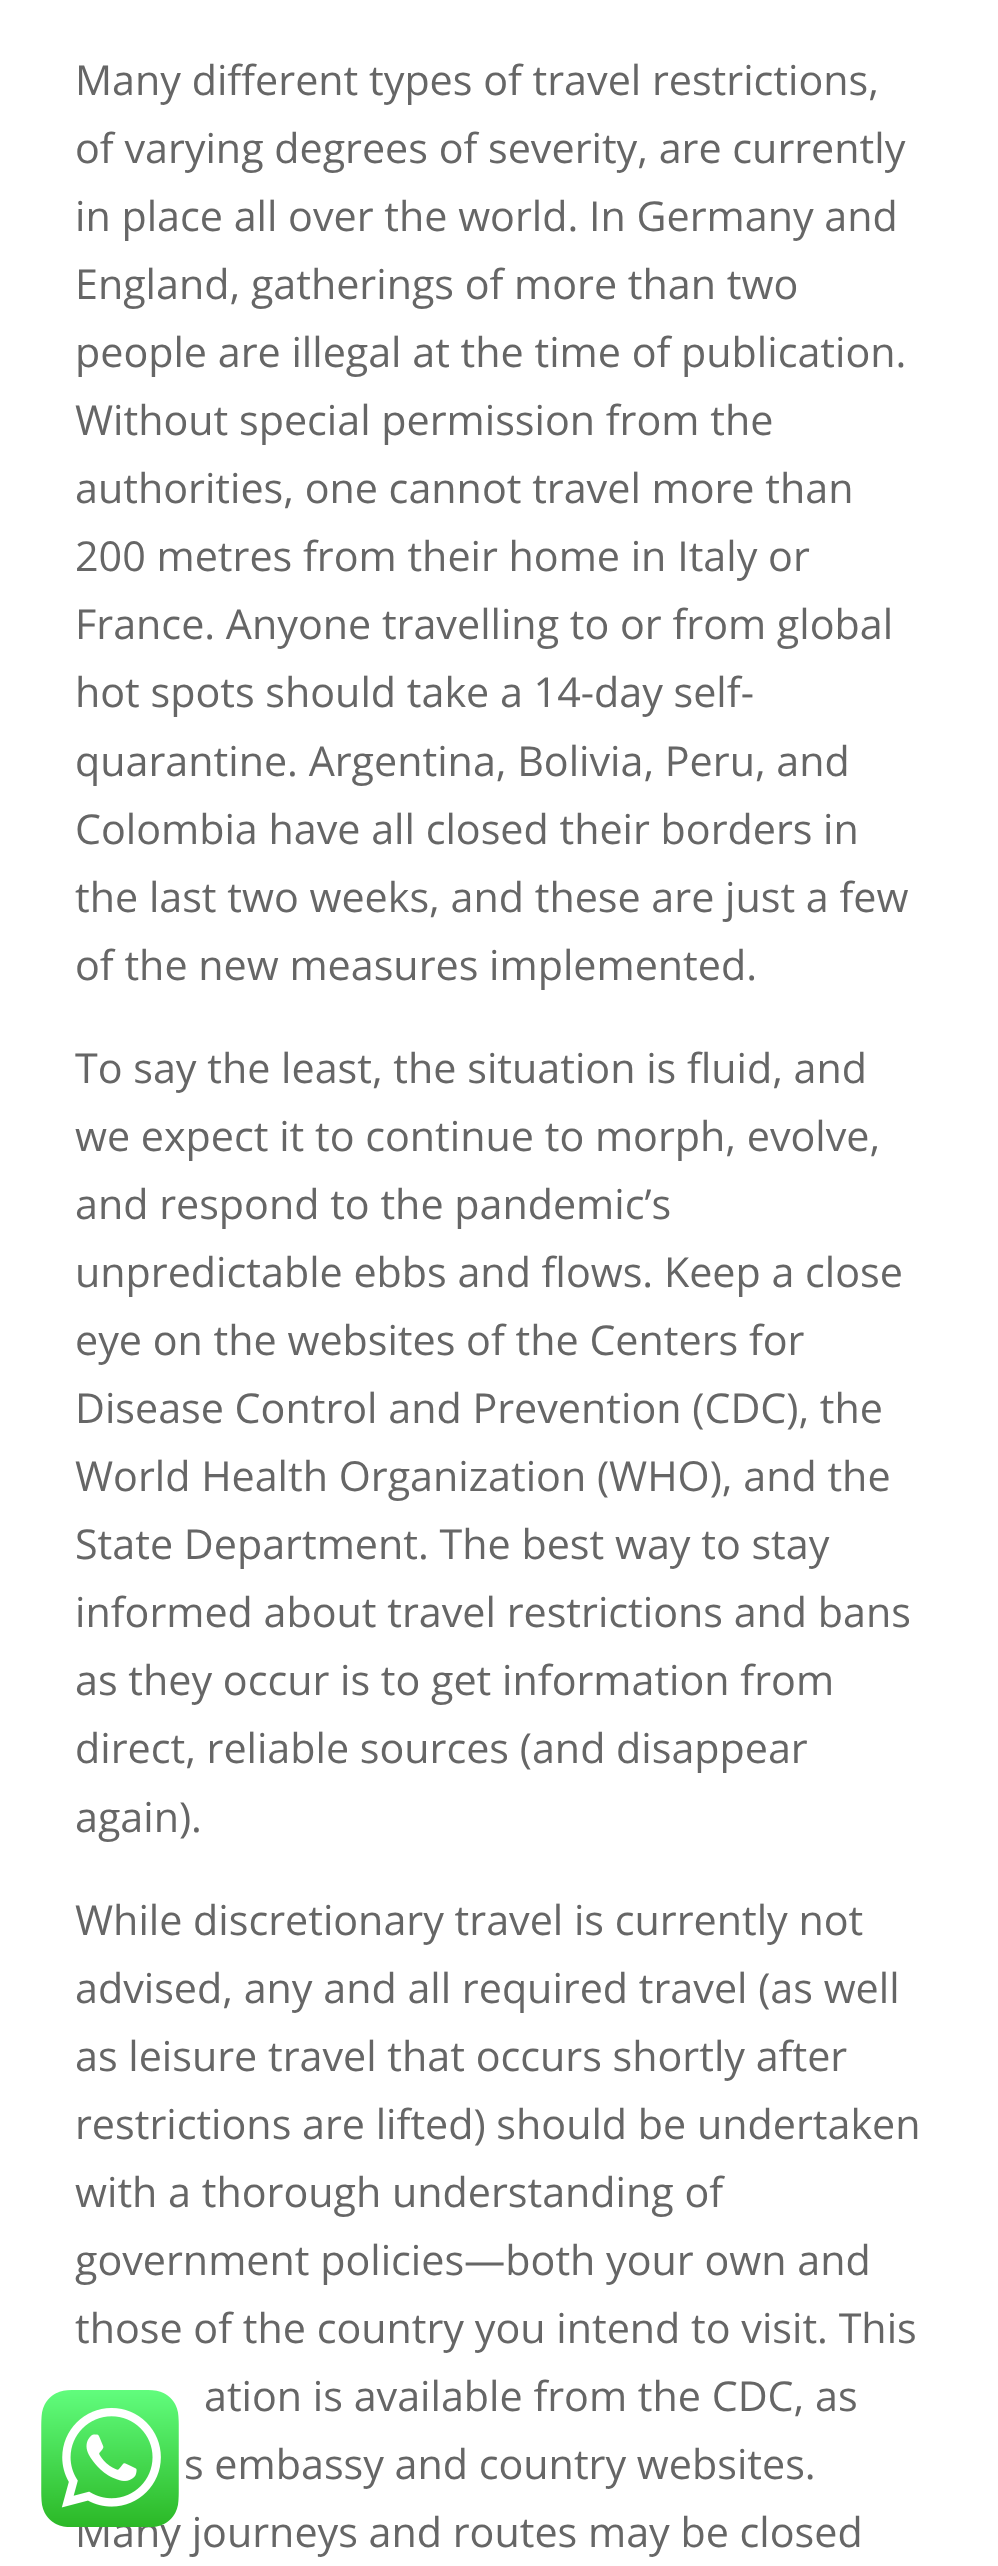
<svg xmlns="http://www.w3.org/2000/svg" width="998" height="2566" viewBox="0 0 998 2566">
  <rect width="100%" height="100%" fill="rgb(255,255,255)"/>
  <g font-family="Open Sans" font-size="41.25" fill="rgb(102,102,102)">
    <text>
      <tspan x="75" y="95">Many different types of travel restrictions,</tspan>
      <tspan x="75" y="163">of varying degrees of severity, are currently</tspan>
      <tspan x="75" y="231">in place all over the world. In Germany and</tspan>
      <tspan x="75" y="299">England, gatherings of more than two</tspan>
      <tspan x="75" y="367">people are illegal at the time of publication.</tspan>
      <tspan x="75" y="435">Without special permission from the</tspan>
      <tspan x="75" y="503">authorities, one cannot travel more than</tspan>
      <tspan x="75" y="571">200 metres from their home in Italy or</tspan>
      <tspan x="75" y="639">France. Anyone travelling to or from global</tspan>
      <tspan x="75" y="707">hot spots should take a 14-day self-</tspan>
      <tspan x="75" y="776">quarantine. Argentina, Bolivia, Peru, and</tspan>
      <tspan x="75" y="844">Colombia have all closed their borders in</tspan>
      <tspan x="75" y="912">the last two weeks, and these are just a few</tspan>
      <tspan x="75" y="980">of the new measures implemented.</tspan>
    </text>
    <text>
      <tspan x="75" y="1083">To say the least, the situation is fluid, and</tspan>
      <tspan x="75" y="1151">we expect it to continue to morph, evolve,</tspan>
      <tspan x="75" y="1219">and respond to the pandemic’s</tspan>
      <tspan x="75" y="1287">unpredictable ebbs and flows. Keep a close</tspan>
      <tspan x="75" y="1355">eye on the websites of the Centers for</tspan>
      <tspan x="75" y="1423">Disease Control and Prevention (CDC), the</tspan>
      <tspan x="75" y="1491">World Health Organization (WHO), and the</tspan>
      <tspan x="75" y="1559">State Department. The best way to stay</tspan>
      <tspan x="75" y="1627">informed about travel restrictions and bans</tspan>
      <tspan x="75" y="1695">as they occur is to get information from</tspan>
      <tspan x="75" y="1763">direct, reliable sources (and disappear</tspan>
      <tspan x="75" y="1832">again).</tspan>
    </text>
    <text>
      <tspan x="75" y="1935">While discretionary travel is currently not</tspan>
      <tspan x="75" y="2003">advised, any and all required travel (as well</tspan>
      <tspan x="75" y="2071">as leisure travel that occurs shortly after</tspan>
      <tspan x="75" y="2139">restrictions are lifted) should be undertaken</tspan>
      <tspan x="75" y="2207">with a thorough understanding of</tspan>
      <tspan x="75" y="2275">government policies—both your own and</tspan>
      <tspan x="75" y="2343">those of the country you intend to visit. This</tspan>
    </text>
    <text x="204" y="2411">ation is available from the CDC, as</text>
    <text x="184" y="2479">s embassy and country websites.</text>
    <text x="75" y="2547">Many journeys and routes may be closed</text>
  </g>
  <image x="41" y="2390" width="138" height="137" href="pic1.png"/>
</svg>
